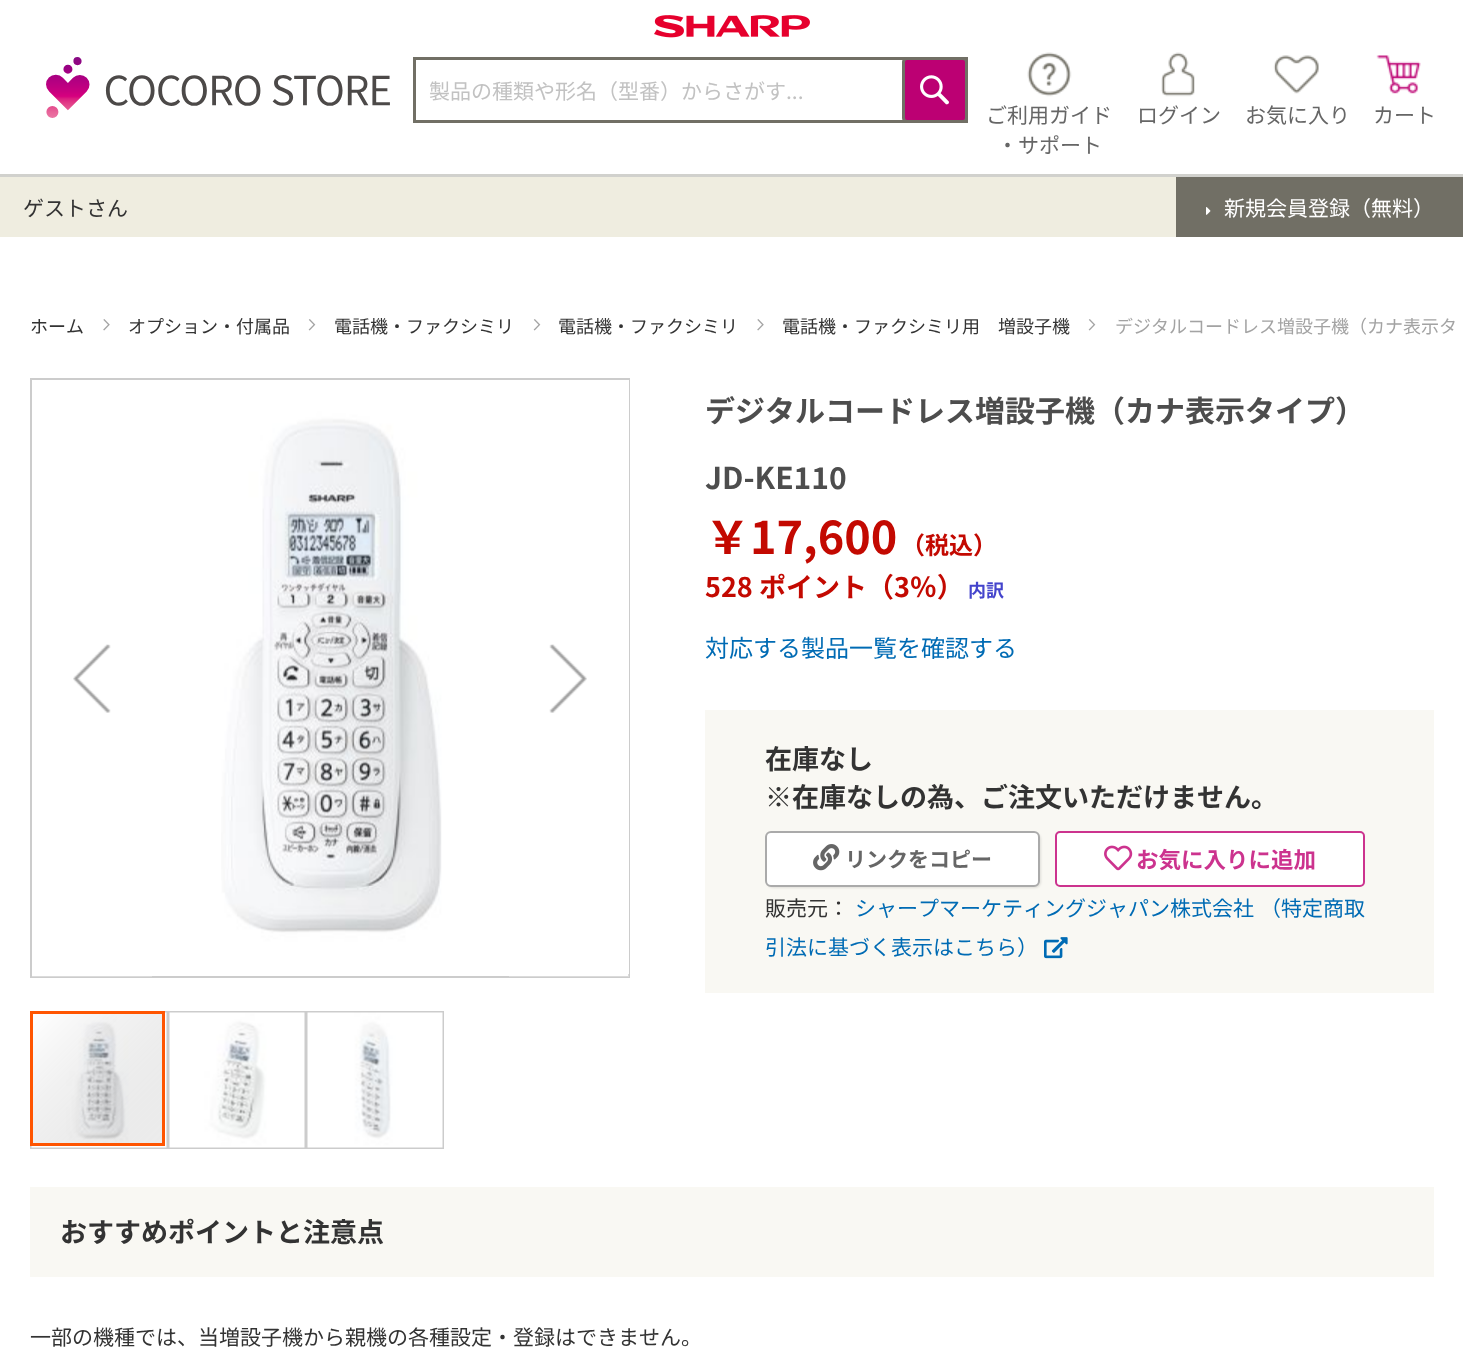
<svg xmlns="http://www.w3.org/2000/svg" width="1463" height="1353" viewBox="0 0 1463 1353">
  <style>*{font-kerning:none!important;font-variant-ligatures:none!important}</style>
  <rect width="100%" height="100%" fill="rgb(255,255,255)"/>
  <image x="654" y="15" width="156" height="23" href="pic1.png"/>
  <image x="46" y="57" width="344" height="61" href="pic2.png"/>
  <rect x="414.5" y="58.5" width="552" height="63" fill="none" stroke="rgb(113,111,101)" stroke-width="3"/>
  <text x="429" y="99" font-family="Noto Sans JP" font-size="21" fill="rgb(194,194,194)">製品の種類や形名（型番）からさがす...</text>
  <rect x="903.5" y="58.5" width="63" height="63" rx="3.5" fill="rgb(188,0,115)" stroke="rgb(113,111,101)" stroke-width="3"/>
  <image x="920" y="75" width="29" height="30" href="pic3.png"/>
  <image x="1027" y="52" width="45" height="45" href="pic4.png"/>
  <g font-family="Noto Sans JP" font-size="21" fill="rgb(102,102,102)">
    <text x="986" y="123">ご利用ガイド</text>
    <text x="997" y="153">・サポート</text>
  </g>
  <image x="1161" y="52" width="34" height="45" href="pic5.png"/>
  <text x="1137" y="123" font-family="Noto Sans JP" font-size="21" fill="rgb(102,102,102)">ログイン</text>
  <image x="1273" y="55" width="46" height="39" href="pic6.png"/>
  <text x="1245" y="123" font-family="Noto Sans JP" font-size="21" fill="rgb(102,102,102)">お気に入り</text>
  <image x="1376" y="55" width="45" height="39" href="pic7.png"/>
  <text x="1373" y="123" font-family="Noto Sans JP" font-size="21" fill="rgb(102,102,102)">カート</text>
  <rect x="0" y="177" width="1176" height="60" fill="rgb(239,237,224)"/>
  <rect x="0" y="174" width="1463" height="3" fill="rgb(209,209,205)"/>
  <text x="23" y="216" font-family="Noto Sans JP" font-size="21" fill="rgb(51,51,51)">ゲストさん</text>
  <rect x="1176" y="177" width="287" height="60" fill="rgb(113,111,101)"/>
  <image x="1206" y="207" width="5" height="8" href="pic8.png"/>
  <text x="1224" y="216" font-family="Noto Sans JP" font-size="21" fill="rgb(255,255,255)">新規会員登録（無料）</text>
  <text x="30" y="333" font-family="Noto Sans JP" font-size="18" fill="rgb(51,51,51)">ホーム</text>
  <image x="103" y="319" width="7" height="12" href="pic9.png"/>
  <text x="128" y="333" font-family="Noto Sans JP" font-size="18" fill="rgb(51,51,51)">オプション・付属品</text>
  <image x="308" y="319" width="8" height="12" href="pic10.png"/>
  <text x="334" y="333" font-family="Noto Sans JP" font-size="18" fill="rgb(51,51,51)">電話機・ファクシミリ</text>
  <image x="533" y="319" width="8" height="12" href="pic10.png"/>
  <text x="558" y="333" font-family="Noto Sans JP" font-size="18" fill="rgb(51,51,51)">電話機・ファクシミリ</text>
  <image x="757" y="319" width="7" height="12" href="pic9.png"/>
  <text x="782" y="333" font-family="Noto Sans JP" font-size="18" fill="rgb(51,51,51)">電話機・ファクシミリ用　増設子機</text>
  <image x="1088" y="319" width="8" height="12" href="pic10.png"/>
  <text x="1115" y="333" font-family="Noto Sans JP" font-size="18" fill="rgb(163,163,163)">デジタルコードレス増設子機（カナ表示タ</text>
  <rect x="31" y="379" width="598" height="598" fill="none" stroke="rgb(204,204,204)" stroke-width="2"/>
  <rect x="32" y="976" width="120" height="1" fill="rgba(255,255,255,0.3)"/>
  <image x="73" y="644" width="38" height="69" href="pic11.png"/>
  <image x="221" y="380" width="408" height="594" href="pic12.png"/>
  <rect x="509" y="974" width="120" height="3" fill="rgba(255,255,255,0.3)"/>
  <image x="549" y="644" width="38" height="69" href="pic13.png"/>
  <rect x="31" y="1012" width="136" height="136" fill="none" stroke="rgb(204,204,204)" stroke-width="2"/>
  <image x="31" y="1012" width="136" height="136" href="pic14.png"/>
  <rect x="31.5" y="1012.5" width="132" height="132" fill="none" stroke="rgb(255,85,1)" stroke-width="3"/>
  <rect x="169" y="1012" width="136" height="136" fill="none" stroke="rgb(204,204,204)" stroke-width="2"/>
  <image x="169" y="1012" width="136" height="136" href="pic15.png"/>
  <rect x="307" y="1012" width="136" height="136" fill="none" stroke="rgb(204,204,204)" stroke-width="2"/>
  <image x="307" y="1012" width="136" height="136" href="pic16.png"/>
  <g font-family="Noto Sans JP" font-size="30" font-weight="bold" fill="rgb(77,77,77)">
    <text x="705" y="422">デジタルコードレス増設子機（カナ表示タイプ）</text>
    <text x="705" y="489">JD-KE110</text>
  </g>
  <text x="705" y="554" font-family="Noto Sans JP" font-size="45" font-weight="bold" fill="rgb(195,9,1)">￥17,600</text>
  <text x="901" y="554" font-family="Noto Sans JP" font-size="24" font-weight="bold" fill="rgb(195,9,1)">（税込）</text>
  <text x="705" y="597" font-family="Noto Sans JP" font-size="27" font-weight="bold" fill="rgb(195,9,1)">528 ポイント（3％）</text>
  <text x="968" y="597" font-family="Noto Sans JP" font-size="18" font-weight="bold" fill="rgb(68,68,204)">内訳</text>
  <text x="705" y="657" font-family="Noto Sans JP" font-size="24" fill="rgb(0,107,180)">対応する製品一覧を確認する</text>
  <rect x="705" y="710" width="729" height="283" fill="rgb(249,248,243)"/>
  <g font-family="Noto Sans JP" font-size="27" font-weight="bold" fill="rgb(51,51,51)">
    <text>
      <tspan x="765" y="769">在庫なし</tspan>
      <tspan x="765" y="807">※在庫なしの為、ご注文いただけません。</tspan>
    </text>
  </g>
  <rect x="767" y="833" width="274" height="55" rx="6" fill="rgba(0,0,0,0.1)" filter="blur(1px)"/>
  <rect x="766" y="832" width="273" height="54" rx="5" fill="rgb(255,255,255)" stroke="rgb(170,170,170)" stroke-width="2"/>
  <image x="813" y="844" width="27" height="27" href="pic17.png"/>
  <text x="845" y="867" font-family="Noto Sans JP" font-size="21" font-weight="bold" fill="rgb(102,102,102)">リンクをコピー</text>
  <rect x="1056" y="832" width="308" height="54" rx="4" fill="rgb(255,255,255)" stroke="rgb(204,51,142)" stroke-width="2"/>
  <image x="1104" y="845" width="29" height="26" href="pic18.png"/>
  <text x="1136" y="868" font-family="Noto Sans JP" font-size="22.5" font-weight="bold" fill="rgb(204,51,142)">お気に入りに追加</text>
  <text x="765" y="916" font-family="Noto Sans JP" font-size="21" fill="rgb(51,51,51)">販売元：</text>
  <g font-family="Noto Sans JP" font-size="21" fill="rgb(0,107,180)">
    <text x="855" y="916">シャープマーケティングジャパン株式会社</text>
    <text x="1260" y="916">（特定商取</text>
    <text x="765" y="955">引法に基づく表示はこちら）</text>
  </g>
  <image x="1044" y="937" width="24" height="22" href="pic19.png"/>
  <rect x="30" y="1187" width="1404" height="90" fill="rgb(249,248,243)"/>
  <text x="60" y="1242" font-family="Noto Sans JP" font-size="27" font-weight="bold" fill="rgb(51,51,51)">おすすめポイントと注意点</text>
  <text x="30" y="1345" font-family="Noto Sans JP" font-size="21" fill="rgb(51,51,51)">一部の機種では、当増設子機から親機の各種設定・登録はできません。</text>
</svg>
